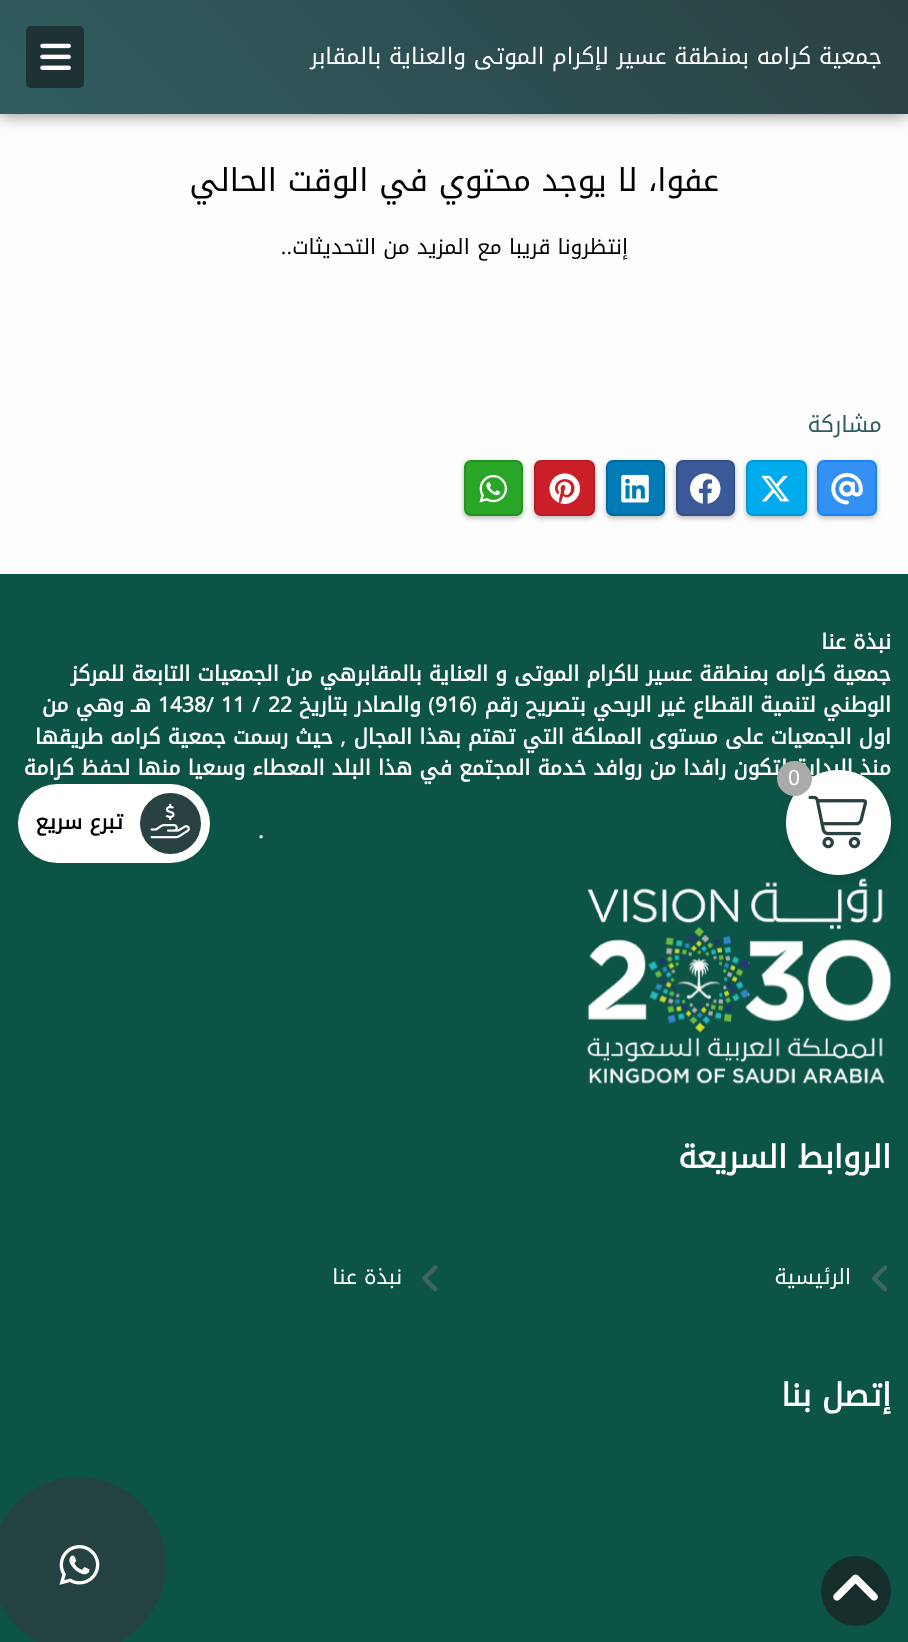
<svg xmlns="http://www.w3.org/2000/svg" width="908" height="1642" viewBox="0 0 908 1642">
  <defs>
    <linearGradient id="g1" gradientUnits="userSpaceOnUse" x1="199" y1="312" x2="710" y2="-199"><stop offset="0" stop-color="rgb(48,93,96)"/><stop offset="1" stop-color="rgb(42,65,66)"/></linearGradient>
  </defs>
  <rect width="100%" height="100%" fill="rgb(253,253,253)"/>
  <rect x="0" y="0" width="908" height="114" fill="rgba(0,0,0,0.5)" filter="blur(9px)"/>
  <rect x="0" y="0" width="908" height="114" fill="url(#g1)"/>
  <text x="882" y="64" font-family="Noto Kufi Arabic" font-size="22.75" direction="rtl" fill="rgb(255,255,255)">جمعية كرامه بمنطقة عسير لإكرام الموتى والعناية بالمقابر</text>
  <rect x="26" y="26" width="58" height="62" rx="5" fill="rgb(30,50,52)"/>
  <image x="40" y="43" width="31" height="27" href="pic1.png"/>
  <text x="719" y="191" font-family="Noto Kufi Arabic" font-size="31.5" direction="rtl" fill="rgb(0,0,0)">عفوا، لا يوجد محتوي في الوقت الحالي</text>
  <text x="628" y="254" font-family="Noto Kufi Arabic" font-size="21" direction="rtl" fill="rgb(0,0,0)">إنتظرونا قريبا مع المزيد من التحديثات</text>
  <text x="292" y="254" font-family="Open Sans" font-size="21" direction="rtl" fill="rgb(0,0,0)">..</text>
  <text x="882" y="432" font-family="Noto Kufi Arabic" font-size="22.5" direction="rtl" fill="rgb(48,93,96)">مشاركة</text>
  <rect x="817" y="462" width="60" height="56" rx="7" fill="rgba(0,0,0,0.15)" filter="blur(2.5px)"/>
  <rect x="817" y="462" width="60" height="56" rx="7" fill="rgba(0,0,0,0.15)" filter="blur(2.5px)"/>
  <rect x="818" y="461" width="58" height="54" rx="6" fill="rgb(52,144,243)" stroke="rgb(28,131,242)" stroke-width="2"/>
  <image x="831" y="472" width="32" height="33" href="pic2.png"/>
  <rect x="746" y="462" width="61" height="56" rx="7" fill="rgba(0,0,0,0.15)" filter="blur(2.5px)"/>
  <rect x="746" y="462" width="61" height="56" rx="7" fill="rgba(0,0,0,0.15)" filter="blur(2.5px)"/>
  <rect x="747" y="461" width="59" height="54" rx="6" fill="rgb(0,172,237)" stroke="rgb(0,153,212)" stroke-width="2"/>
  <image x="761" y="475" width="29" height="27" href="pic3.png"/>
  <rect x="676" y="462" width="59" height="56" rx="7" fill="rgba(0,0,0,0.15)" filter="blur(2.5px)"/>
  <rect x="676" y="462" width="59" height="56" rx="7" fill="rgba(0,0,0,0.15)" filter="blur(2.5px)"/>
  <rect x="677" y="461" width="57" height="54" rx="6" fill="rgb(59,89,152)" stroke="rgb(52,78,134)" stroke-width="2"/>
  <image x="690" y="473" width="31" height="31" href="pic4.png"/>
  <rect x="606" y="462" width="59" height="56" rx="7" fill="rgba(0,0,0,0.15)" filter="blur(2.5px)"/>
  <rect x="606" y="462" width="59" height="56" rx="7" fill="rgba(0,0,0,0.15)" filter="blur(2.5px)"/>
  <rect x="607" y="461" width="57" height="54" rx="6" fill="rgb(0,123,182)" stroke="rgb(0,106,157)" stroke-width="2"/>
  <image x="621" y="474" width="28" height="29" href="pic5.png"/>
  <rect x="534" y="462" width="61" height="56" rx="7" fill="rgba(0,0,0,0.15)" filter="blur(2.5px)"/>
  <rect x="534" y="462" width="61" height="56" rx="7" fill="rgba(0,0,0,0.15)" filter="blur(2.5px)"/>
  <rect x="535" y="461" width="59" height="54" rx="6" fill="rgb(203,32,39)" stroke="rgb(181,29,35)" stroke-width="2"/>
  <image x="549" y="473" width="31" height="31" href="pic6.png"/>
  <rect x="464" y="462" width="59" height="56" rx="7" fill="rgba(0,0,0,0.15)" filter="blur(2.5px)"/>
  <rect x="464" y="462" width="59" height="56" rx="7" fill="rgba(0,0,0,0.15)" filter="blur(2.5px)"/>
  <rect x="465" y="461" width="57" height="54" rx="6" fill="rgb(41,166,40)" stroke="rgb(36,145,35)" stroke-width="2"/>
  <image x="479" y="474" width="29" height="29" href="pic7.png"/>
  <rect x="0" y="574" width="908" height="1068" fill="rgb(12,84,70)"/>
  <g font-family="Noto Kufi Arabic" font-size="21" font-weight="bold" direction="rtl" fill="rgb(255,255,255)">
    <text>
      <tspan x="891" y="649">نبذة عنا</tspan>
      <tspan x="891" y="681">جمعية كرامه بمنطقة عسير لاكرام الموتى و العناية بالمقابرهي من الجمعيات التابعة للمركز</tspan>
      <tspan x="891" y="712">الوطني لتنمية القطاع غير الربحي بتصريح رقم</tspan>
    </text>
  </g>
  <text x="477" y="712" font-family="Open Sans" font-size="21" font-weight="600" direction="rtl" fill="rgb(255,255,255)">(</text>
  <text x="435" y="712" font-family="Noto Kufi Arabic" font-size="21" font-weight="bold" fill="rgb(255,255,255)">916</text>
  <text x="435" y="712" font-family="Open Sans" font-size="21" font-weight="600" direction="rtl" fill="rgb(255,255,255)">)</text>
  <text x="421" y="712" font-family="Noto Kufi Arabic" font-size="21" font-weight="bold" direction="rtl" fill="rgb(255,255,255)">والصادر بتاريخ</text>
  <text x="268" y="712" font-family="Noto Kufi Arabic" font-size="21" font-weight="bold" fill="rgb(255,255,255)">22</text>
  <text x="252" y="712" font-family="Open Sans" font-size="21" font-weight="600" fill="rgb(255,255,255)">/</text>
  <text x="221" y="712" font-family="Noto Kufi Arabic" font-size="21" font-weight="bold" fill="rgb(255,255,255)">11</text>
  <text x="206" y="712" font-family="Open Sans" font-size="21" font-weight="600" fill="rgb(255,255,255)">/</text>
  <text x="158" y="712" font-family="Noto Kufi Arabic" font-size="21" font-weight="bold" fill="rgb(255,255,255)">1438</text>
  <g font-family="Noto Kufi Arabic" font-size="21" font-weight="bold" direction="rtl" fill="rgb(255,255,255)">
    <text x="151" y="712">هـ وهي من</text>
    <text x="891" y="744">اول الجمعيات على مستوى المملكة التي تهتم بهذا المجال</text>
  </g>
  <text x="346" y="744" font-family="Open Sans" font-size="21" font-weight="600" direction="rtl" fill="rgb(255,255,255)">,</text>
  <g font-family="Noto Kufi Arabic" font-size="21" font-weight="bold" direction="rtl" fill="rgb(255,255,255)">
    <text x="333" y="744">حيث رسمت جمعية كرامه طريقها</text>
    <text x="891" y="775">منذ البداية لتكون رافدا من روافد خدمة المجتمع في هذا البلد المعطاء وسعيا منها لحفظ كرامة</text>
  </g>
  <text x="264" y="838" font-family="Open Sans" font-size="21" font-weight="600" direction="rtl" fill="rgb(255,255,255)">.</text>
  <image x="587" y="878" width="304" height="206" href="pic8.png"/>
  <text x="891" y="1168" font-family="Noto Kufi Arabic" font-size="31.5" font-weight="bold" direction="rtl" fill="rgb(255,255,255)">الروابط السريعة</text>
  <image x="872" y="1265" width="16" height="27" href="pic9.png"/>
  <text x="851" y="1284" font-family="Noto Kufi Arabic" font-size="21" direction="rtl" fill="rgb(255,255,255)">الرئيسية</text>
  <image x="422" y="1265" width="16" height="27" href="pic10.png"/>
  <text x="402" y="1284" font-family="Noto Kufi Arabic" font-size="21" direction="rtl" fill="rgb(255,255,255)">نبذة عنا</text>
  <text x="891" y="1406" font-family="Noto Kufi Arabic" font-size="31.5" font-weight="bold" direction="rtl" fill="rgb(255,255,255)">إتصل بنا</text>
  <rect x="789" y="774" width="105" height="105" rx="52.5" fill="rgba(0,0,0,0.1)" filter="blur(7px)"/>
  <circle cx="838.5" cy="822.5" r="52.5" fill="rgb(255,255,255)"/>
  <image x="808" y="795" width="60" height="54" href="pic11.png"/>
  <circle cx="794.5" cy="778.5" r="17.5" fill="rgb(170,170,170)"/>
  <text x="788" y="785" font-family="Noto Kufi Arabic" font-size="21" fill="rgb(255,255,255)">0</text>
  <rect x="18" y="784" width="192" height="79" rx="39.5" fill="rgb(255,255,255)"/>
  <circle cx="170.5" cy="823.5" r="30.5" fill="rgb(42,65,66)"/>
  <image x="150" y="803" width="40" height="36" href="pic12.png"/>
  <text x="123" y="829" font-family="Noto Kufi Arabic" font-size="21" font-weight="bold" direction="rtl" fill="rgb(0,0,0)">تبرع سريع</text>
  <circle cx="856" cy="1591" r="35" fill="rgb(22,47,45)"/>
  <image x="833" y="1574" width="45" height="27" href="pic13.png"/>
  <circle cx="78.5" cy="1564.5" r="87.5" fill="rgb(37,66,67)"/>
  <image x="59" y="1545" width="41" height="40" href="pic14.png"/>
</svg>
